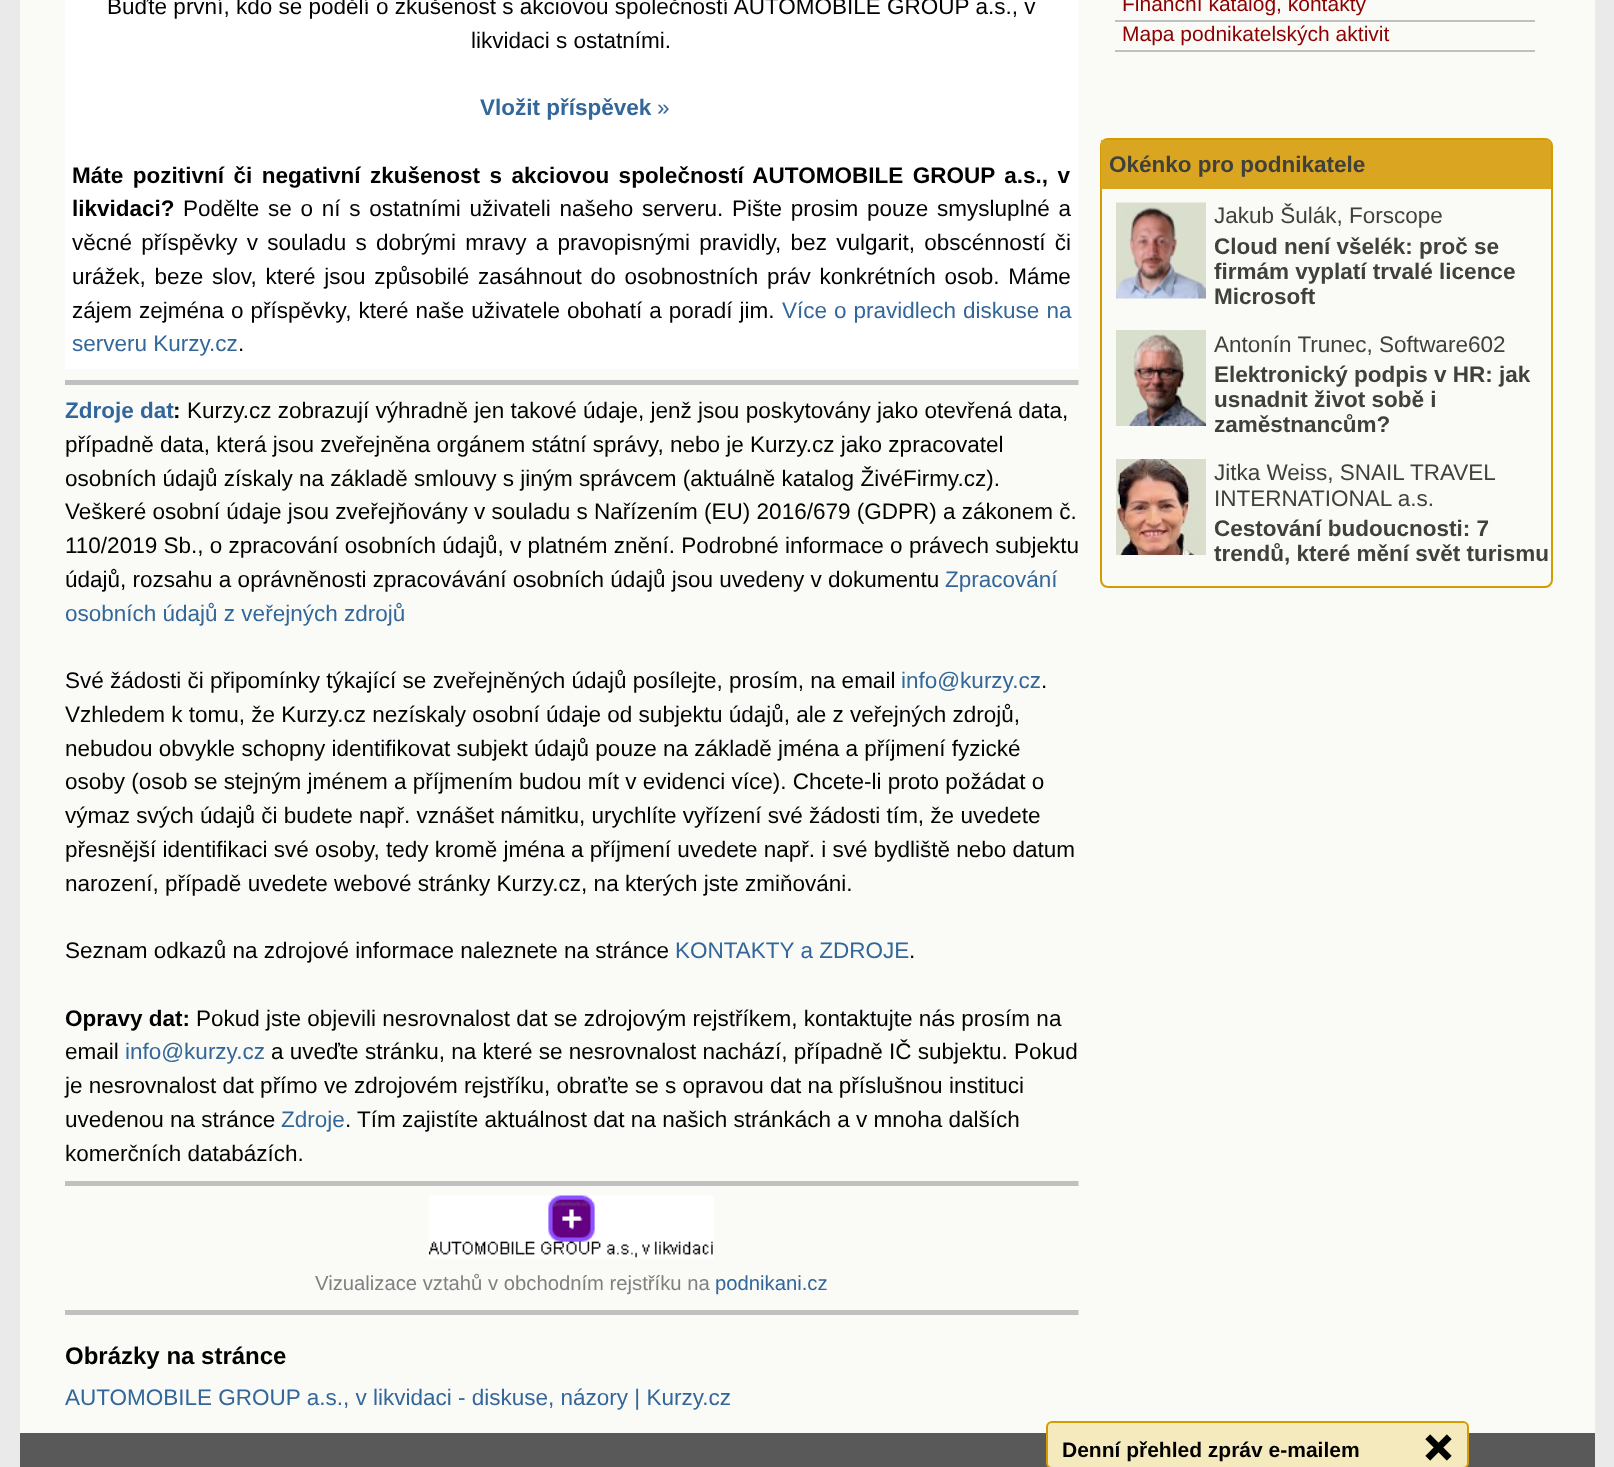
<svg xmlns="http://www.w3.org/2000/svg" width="1614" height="1467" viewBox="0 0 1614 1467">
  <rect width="100%" height="100%" fill="rgb(234,234,234)"/>
  <rect x="20" y="0" width="1575" height="1433" fill="rgb(250,251,247)"/>
  <rect x="65" y="0" width="1013" height="369" fill="rgb(255,255,255)"/>
  <rect x="1078" y="0" width="1" height="369" fill="rgb(252,253,251)"/>
  <g font-family="Liberation Sans" font-size="22.5" fill="rgb(0,0,0)">
    <text x="107" y="14">Buďte první, kdo se podělí o zkušenost s akciovou společností AUTOMOBILE GROUP a.s., v</text>
    <text x="471" y="48">likvidaci s ostatními.</text>
  </g>
  <text x="480" y="115" font-family="Liberation Sans" font-size="22.5" font-weight="bold" fill="rgb(51,102,153)">Vložit příspěvek</text>
  <text x="657" y="115" font-family="Liberation Sans" font-size="22.5" fill="rgb(51,102,153)">»</text>
  <g font-family="Liberation Sans" font-size="22.5" font-weight="bold" fill="rgb(0,0,0)">
    <text>
      <tspan x="72" y="183" word-spacing="3.25">Máte pozitivní či negativní zkušenost s akciovou společností AUTOMOBILE GROUP a.s., v</tspan>
      <tspan x="72" y="216">likvidaci?</tspan>
    </text>
  </g>
  <g font-family="Liberation Sans" font-size="22.5" fill="rgb(0,0,0)">
    <text x="183" y="216" word-spacing="2.5">Podělte se o ní s ostatními uživateli našeho serveru. Pište prosim pouze smysluplné a</text>
    <text>
      <tspan x="72" y="250" word-spacing="3">věcné příspěvky v souladu s dobrými mravy a pravopisnými pravidly, bez vulgarit, obscénností či</tspan>
      <tspan x="72" y="284" word-spacing="2.5">urážek, beze slov, které jsou způsobilé zasáhnout do osobnostních práv konkrétních osob. Máme</tspan>
      <tspan x="72" y="318" word-spacing="0.75">zájem zejména o příspěvky, které naše uživatele obohatí a poradí jim.</tspan>
    </text>
  </g>
  <g font-family="Liberation Sans" font-size="22.5" fill="rgb(51,102,153)">
    <text x="782" y="318" word-spacing="0.75">Více o pravidlech diskuse na</text>
    <text x="72" y="351">serveru Kurzy.cz</text>
  </g>
  <text x="238" y="351" font-family="Liberation Sans" font-size="22.5" fill="rgb(0,0,0)">.</text>
  <rect x="65" y="380" width="1014" height="5" fill="rgb(192,192,192)"/>
  <rect x="1078" y="380" width="1" height="5" fill="rgb(221,222,220)"/>
  <text x="65" y="418" font-family="Liberation Sans" font-size="22.5" font-weight="bold" fill="rgb(51,102,153)">Zdroje dat</text>
  <text x="173" y="418" font-family="Liberation Sans" font-size="22.5" font-weight="bold" fill="rgb(0,0,0)">:</text>
  <g font-family="Liberation Sans" font-size="22.5" fill="rgb(0,0,0)">
    <text x="187" y="418">Kurzy.cz zobrazují výhradně jen takové údaje, jenž jsou poskytovány jako otevřená data,</text>
    <text>
      <tspan x="65" y="452">případně data, která jsou zveřejněna orgánem státní správy, nebo je Kurzy.cz jako zpracovatel</tspan>
      <tspan x="65" y="486">osobních údajů získaly na základě smlouvy s jiným správcem (aktuálně katalog ŽivéFirmy.cz).</tspan>
      <tspan x="65" y="519">Veškeré osobní údaje jsou zveřejňovány v souladu s Nařízením (EU) 2016/679 (GDPR) a zákonem č.</tspan>
      <tspan x="65" y="553">110/2019 Sb., o zpracování osobních údajů, v platném znění. Podrobné informace o právech subjektu</tspan>
      <tspan x="65" y="587">údajů, rozsahu a oprávněnosti zpracovávání osobních údajů jsou uvedeny v dokumentu</tspan>
    </text>
  </g>
  <g font-family="Liberation Sans" font-size="22.5" fill="rgb(51,102,153)">
    <text x="945" y="587">Zpracování</text>
    <text x="65" y="621">osobních údajů z veřejných zdrojů</text>
  </g>
  <text x="65" y="688" font-family="Liberation Sans" font-size="22.5" fill="rgb(0,0,0)">Své žádosti či připomínky týkající se zveřejněných údajů posílejte, prosím, na email</text>
  <text x="901" y="688" font-family="Liberation Sans" font-size="22.5" fill="rgb(51,102,153)">info@kurzy.cz</text>
  <g font-family="Liberation Sans" font-size="22.5" fill="rgb(0,0,0)">
    <text x="1041" y="688">.</text>
    <text>
      <tspan x="65" y="722">Vzhledem k tomu, že Kurzy.cz nezískaly osobní údaje od subjektu údajů, ale z veřejných zdrojů,</tspan>
      <tspan x="65" y="756">nebudou obvykle schopny identifikovat subjekt údajů pouze na základě jména a příjmení fyzické</tspan>
      <tspan x="65" y="789">osoby (osob se stejným jménem a příjmením budou mít v evidenci více). Chcete-li proto požádat o</tspan>
      <tspan x="65" y="823">výmaz svých údajů či budete např. vznášet námitku, urychlíte vyřízení své žádosti tím, že uvedete</tspan>
      <tspan x="65" y="857">přesnější identifikaci své osoby, tedy kromě jména a příjmení uvedete např. i své bydliště nebo datum</tspan>
      <tspan x="65" y="891">narození, případě uvedete webové stránky Kurzy.cz, na kterých jste zmiňováni.</tspan>
    </text>
    <text x="65" y="958">Seznam odkazů na zdrojové informace naleznete na stránce</text>
  </g>
  <text x="675" y="958" font-family="Liberation Sans" font-size="22.5" fill="rgb(51,102,153)">KONTAKTY a ZDROJE</text>
  <text x="909" y="958" font-family="Liberation Sans" font-size="22.5" fill="rgb(0,0,0)">.</text>
  <text x="65" y="1026" font-family="Liberation Sans" font-size="22.5" font-weight="bold" fill="rgb(0,0,0)">Opravy dat:</text>
  <g font-family="Liberation Sans" font-size="22.5" fill="rgb(0,0,0)">
    <text x="196" y="1026">Pokud jste objevili nesrovnalost dat se zdrojovým rejstříkem, kontaktujte nás prosím na</text>
    <text x="65" y="1059">email</text>
  </g>
  <text x="125" y="1059" font-family="Liberation Sans" font-size="22.5" fill="rgb(51,102,153)">info@kurzy.cz</text>
  <g font-family="Liberation Sans" font-size="22.5" fill="rgb(0,0,0)">
    <text x="271" y="1059">a uveďte stránku, na které se nesrovnalost nachází, případně IČ subjektu. Pokud</text>
    <text>
      <tspan x="65" y="1093">je nesrovnalost dat přímo ve zdrojovém rejstříku, obraťte se s opravou dat na příslušnou instituci</tspan>
      <tspan x="65" y="1127">uvedenou na stránce</tspan>
    </text>
  </g>
  <text x="281" y="1127" font-family="Liberation Sans" font-size="22.5" fill="rgb(51,102,153)">Zdroje</text>
  <g font-family="Liberation Sans" font-size="22.5" fill="rgb(0,0,0)">
    <text x="345" y="1127">.</text>
    <text x="357" y="1127">Tím zajistíte aktuálnost dat na našich stránkách a v mnoha dalších</text>
    <text x="65" y="1161">komerčních databázích.</text>
  </g>
  <rect x="65" y="1181" width="1014" height="5" fill="rgb(192,192,192)"/>
  <rect x="1078" y="1181" width="1" height="5" fill="rgb(221,222,220)"/>
  <image x="429" y="1195" width="285" height="64" href="pic1.png"/>
  <text x="315" y="1290" font-family="Liberation Sans" font-size="20.25" fill="rgb(128,128,128)">Vizualizace vztahů v obchodním rejstříku na</text>
  <text x="715" y="1290" font-family="Liberation Sans" font-size="20.25" fill="rgb(51,102,153)">podnikani.cz</text>
  <rect x="65" y="1310" width="1014" height="5" fill="rgb(192,192,192)"/>
  <rect x="1078" y="1310" width="1" height="5" fill="rgb(221,222,220)"/>
  <text x="65" y="1364" font-family="Liberation Sans" font-size="24" font-weight="bold" fill="rgb(0,0,0)">Obrázky na stránce</text>
  <text x="65" y="1405" font-family="Liberation Sans" font-size="22.5" fill="rgb(51,102,153)">AUTOMOBILE GROUP a.s., v likvidaci - diskuse, názory | Kurzy.cz</text>
  <rect x="1115" y="20" width="420" height="2" fill="rgb(192,192,192)"/>
  <text x="1122" y="11" font-family="Liberation Sans" font-size="21" fill="rgb(139,0,0)">Finanční katalog, kontakty</text>
  <rect x="1115" y="50" width="420" height="2" fill="rgb(192,192,192)"/>
  <text x="1122" y="41" font-family="Liberation Sans" font-size="21" fill="rgb(139,0,0)">Mapa podnikatelských aktivit</text>
  <rect x="1101" y="139" width="451" height="448" rx="7" fill="none" stroke="rgb(212,156,1)" stroke-width="2"/>
  <rect x="1101" y="140" width="450" height="49" fill="rgb(218,165,32)"/>
  <text x="1109" y="172" font-family="Liberation Sans" font-size="22.5" font-weight="bold" fill="rgb(64,65,59)">Okénko pro podnikatele</text>
  <image x="1116" y="202" width="90" height="97" href="pic2.png"/>
  <text x="1214" y="223" font-family="Liberation Sans" font-size="22.5" fill="rgb(64,65,59)">Jakub Šulák, Forscope</text>
  <g font-family="Liberation Sans" font-size="22.5" font-weight="bold" fill="rgb(64,65,59)">
    <text>
      <tspan x="1214" y="254">Cloud není všelék: proč se</tspan>
      <tspan x="1214" y="279">firmám vyplatí trvalé licence</tspan>
      <tspan x="1214" y="304">Microsoft</tspan>
    </text>
  </g>
  <image x="1116" y="330" width="90" height="96" href="pic3.png"/>
  <text x="1214" y="352" font-family="Liberation Sans" font-size="22.5" fill="rgb(64,65,59)">Antonín Trunec, Software602</text>
  <g font-family="Liberation Sans" font-size="22.5" font-weight="bold" fill="rgb(64,65,59)">
    <text>
      <tspan x="1214" y="382">Elektronický podpis v HR: jak</tspan>
      <tspan x="1214" y="407">usnadnit život sobě i</tspan>
      <tspan x="1214" y="432">zaměstnancům?</tspan>
    </text>
  </g>
  <image x="1116" y="459" width="90" height="96" href="pic4.png"/>
  <g font-family="Liberation Sans" font-size="22.5" fill="rgb(64,65,59)">
    <text>
      <tspan x="1214" y="480">Jitka Weiss, SNAIL TRAVEL</tspan>
      <tspan x="1214" y="506">INTERNATIONAL a.s.</tspan>
    </text>
  </g>
  <g font-family="Liberation Sans" font-size="22.5" font-weight="bold" fill="rgb(64,65,59)">
    <text>
      <tspan x="1214" y="536">Cestování budoucnosti: 7</tspan>
      <tspan x="1214" y="561">trendů, které mění svět turismu</tspan>
    </text>
  </g>
  <rect x="20" y="1433" width="1575" height="34" fill="rgb(89,89,89)"/>
  <rect x="1047" y="1422" width="421" height="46" rx="5" fill="rgb(244,234,189)" stroke="rgb(212,156,1)" stroke-width="2"/>
  <text x="1062" y="1457" font-family="Liberation Sans" font-size="21" font-weight="bold" fill="rgb(0,0,0)">Denní přehled zpráv e-mailem</text>
  <image x="1425" y="1434" width="27" height="27" href="pic5.png"/>
</svg>
